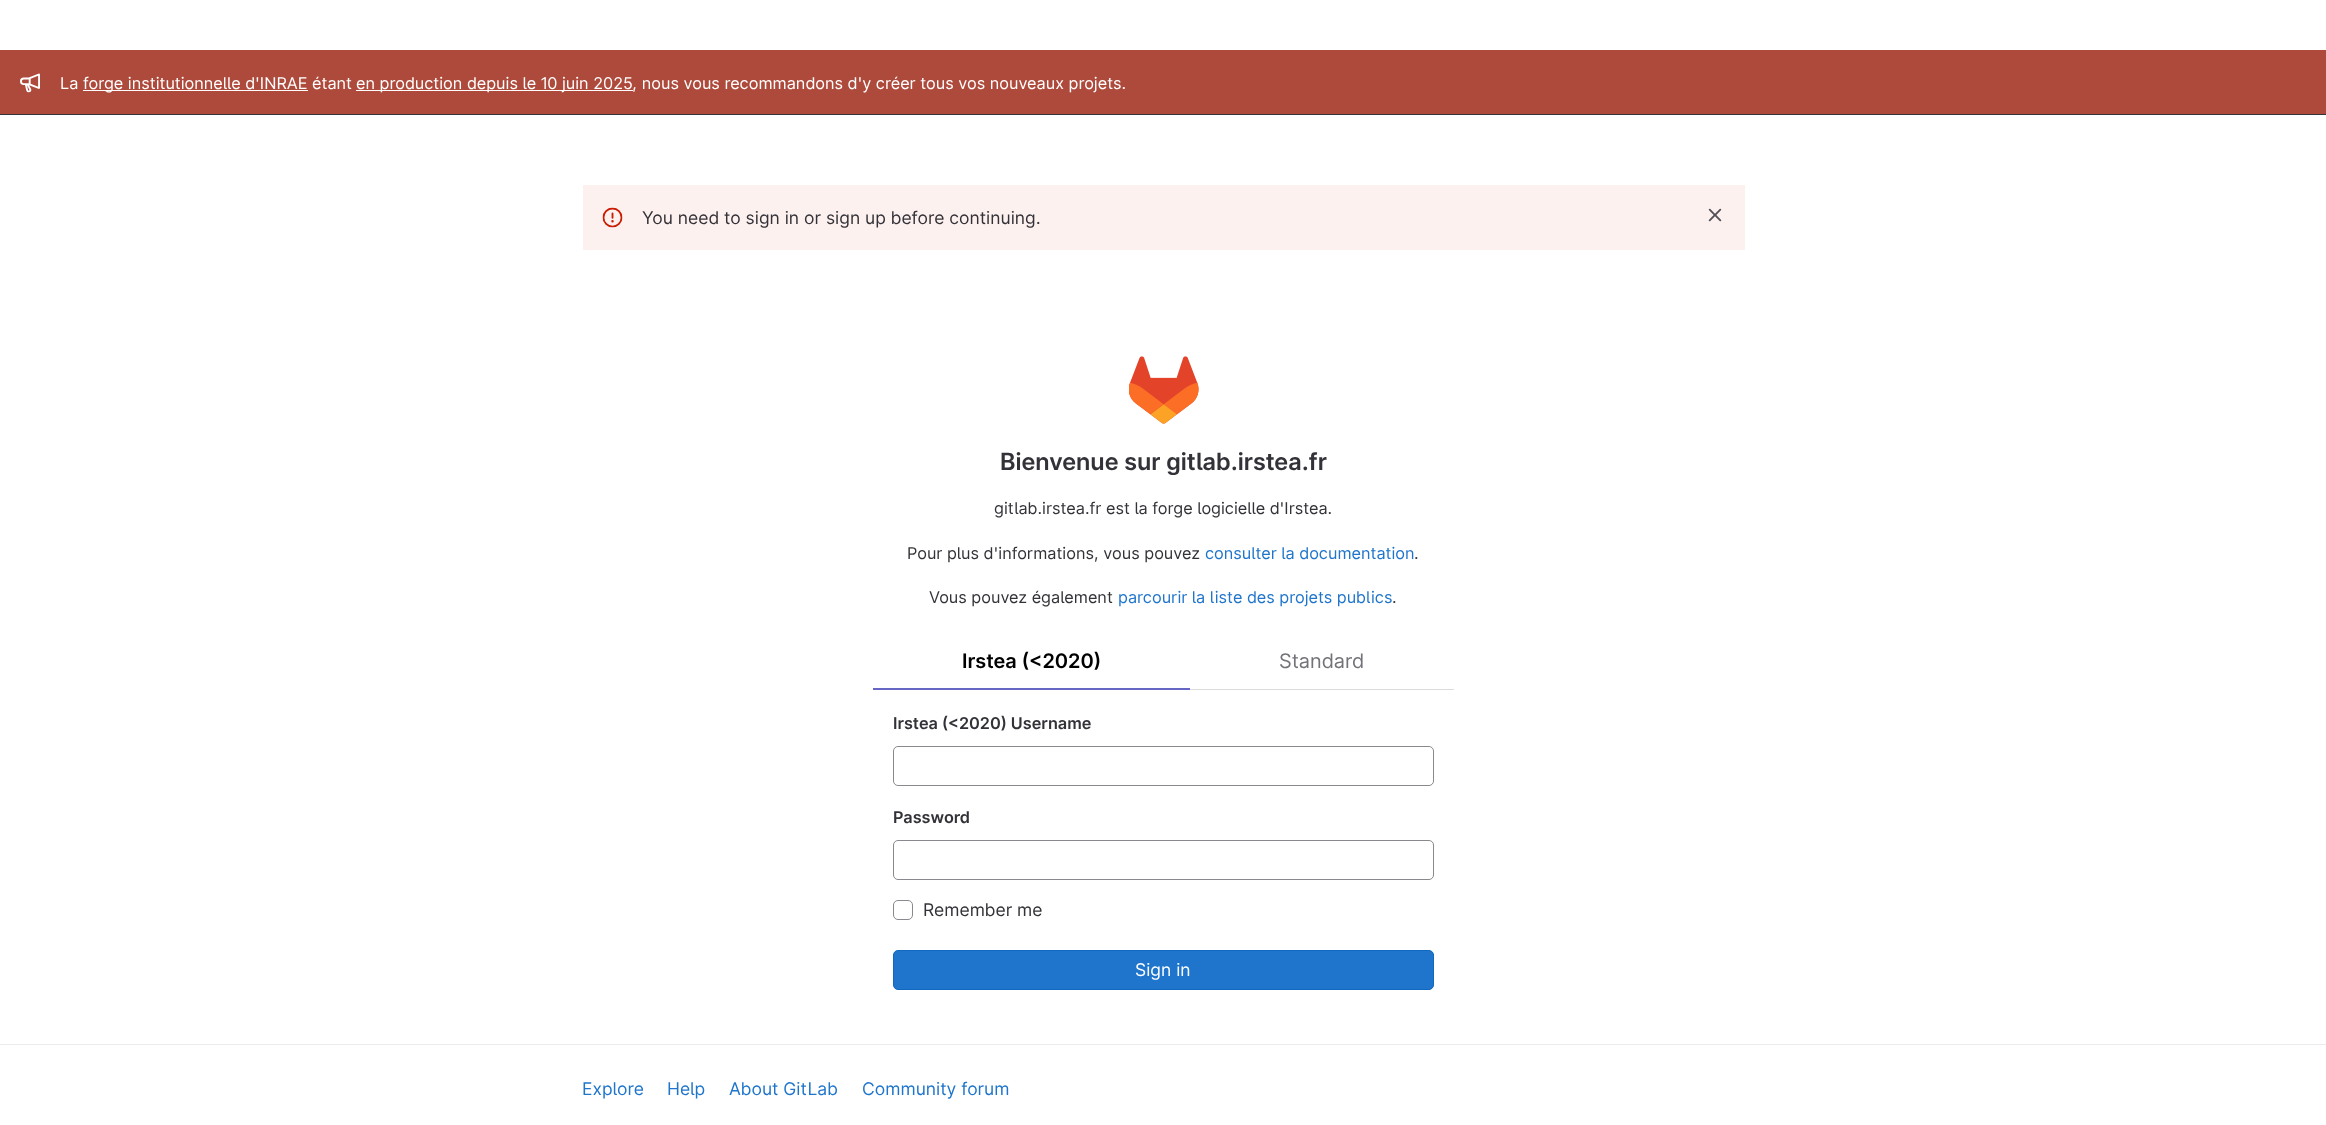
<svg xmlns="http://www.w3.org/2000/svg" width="2326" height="1125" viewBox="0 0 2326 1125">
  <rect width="100%" height="100%" fill="rgb(255,255,255)"/>
  <rect x="0" y="50" width="2326" height="64" fill="rgb(173,74,59)"/>
  <rect x="0" y="114" width="2326" height="1" fill="rgb(51,50,56)"/>
  <image x="20" y="73" width="20" height="20" href="pic1.png"/>
  <text x="60" y="89" font-family="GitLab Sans" font-size="16.25" fill="rgb(255,255,255)">La</text>
  <rect x="83" y="90" width="225" height="1" fill="rgb(255,255,255)"/>
  <text x="83" y="89" font-family="GitLab Sans" font-size="16.25" fill="rgb(255,255,255)">forge institutionnelle d'INRAE étant</text>
  <rect x="356" y="90" width="277" height="1" fill="rgb(255,255,255)"/>
  <text x="356" y="89" font-family="GitLab Sans" font-size="16.25" fill="rgb(255,255,255)">en production depuis le 10 juin 2025, nous vous recommandons d'y créer tous vos nouveaux projets.</text>
  <rect x="583" y="185" width="1162" height="65" fill="rgb(252,241,239)"/>
  <image x="602" y="207" width="21" height="21" href="pic2.png"/>
  <text x="642" y="224" font-family="GitLab Sans" font-size="17.5" fill="rgb(51,50,56)">You need to sign in or sign up before continuing.</text>
  <image x="1708" y="208" width="14" height="14" href="pic3.png"/>
  <image x="1129" y="356" width="70" height="68" href="pic4.png"/>
  <text x="1000" y="470" font-family="'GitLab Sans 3'" font-size="23.75" font-weight="600" fill="rgb(51,50,56)">Bienvenue sur gitlab.irstea.fr</text>
  <g font-family="GitLab Sans" font-size="16.25" fill="rgb(51,50,56)">
    <text x="994" y="514">gitlab.irstea.fr est la forge logicielle d'Irstea.</text>
    <text x="907" y="559">Pour plus d'informations, vous pouvez</text>
  </g>
  <text x="1205" y="559" font-family="GitLab Sans" font-size="16.25" fill="rgb(31,117,203)">consulter la documentation</text>
  <g font-family="GitLab Sans" font-size="16.25" fill="rgb(51,50,56)">
    <text x="1414" y="559">.</text>
    <text x="929" y="603">Vous pouvez également</text>
  </g>
  <text x="1118" y="603" font-family="GitLab Sans" font-size="16.25" fill="rgb(31,117,203)">parcourir la liste des projets publics</text>
  <text x="1392" y="603" font-family="GitLab Sans" font-size="16.25" fill="rgb(51,50,56)">.</text>
  <rect x="873" y="688" width="317" height="2" fill="rgb(102,102,196)"/>
  <text x="962" y="668" font-family="GitLab Sans" font-size="20" font-weight="600" fill="rgb(0,0,0)">Irstea (&lt;2020)</text>
  <rect x="1190" y="689" width="264" height="1" fill="rgb(220,220,222)"/>
  <text x="1279" y="668" font-family="'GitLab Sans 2'" font-size="20" fill="rgb(115,114,120)">Standard</text>
  <text x="893" y="729" font-family="'GitLab Sans 2'" font-size="16.25" font-weight="600" fill="rgb(51,50,56)">Irstea (&lt;2020) Username</text>
  <rect x="893.5" y="746.5" width="540" height="39" rx="4.5" fill="none" stroke="rgb(137,136,141)"/>
  <text x="893" y="823" font-family="'GitLab Sans 2'" font-size="16.25" font-weight="600" fill="rgb(51,50,56)">Password</text>
  <rect x="893.5" y="840.5" width="540" height="39" rx="4.5" fill="none" stroke="rgb(137,136,141)"/>
  <rect x="893.5" y="900.5" width="19" height="19" rx="4.5" fill="none" stroke="rgb(137,136,141)"/>
  <text x="923" y="916" font-family="GitLab Sans" font-size="17.5" fill="rgb(51,50,56)">Remember me</text>
  <rect x="893.5" y="950.5" width="540" height="39" rx="4.5" fill="rgb(31,117,203)" stroke="rgb(16,104,191)"/>
  <text x="1135" y="976" font-family="GitLab Sans" font-size="17.5" fill="rgb(255,255,255)">Sign in</text>
  <rect x="0" y="1044" width="2326" height="1" fill="rgb(236,236,239)"/>
  <g font-family="GitLab Sans" font-size="17.5" fill="rgb(31,117,203)">
    <text x="582" y="1095">Explore</text>
    <text x="667" y="1095">Help</text>
    <text x="729" y="1095">About GitLab</text>
    <text x="862" y="1095">Community forum</text>
  </g>
</svg>
